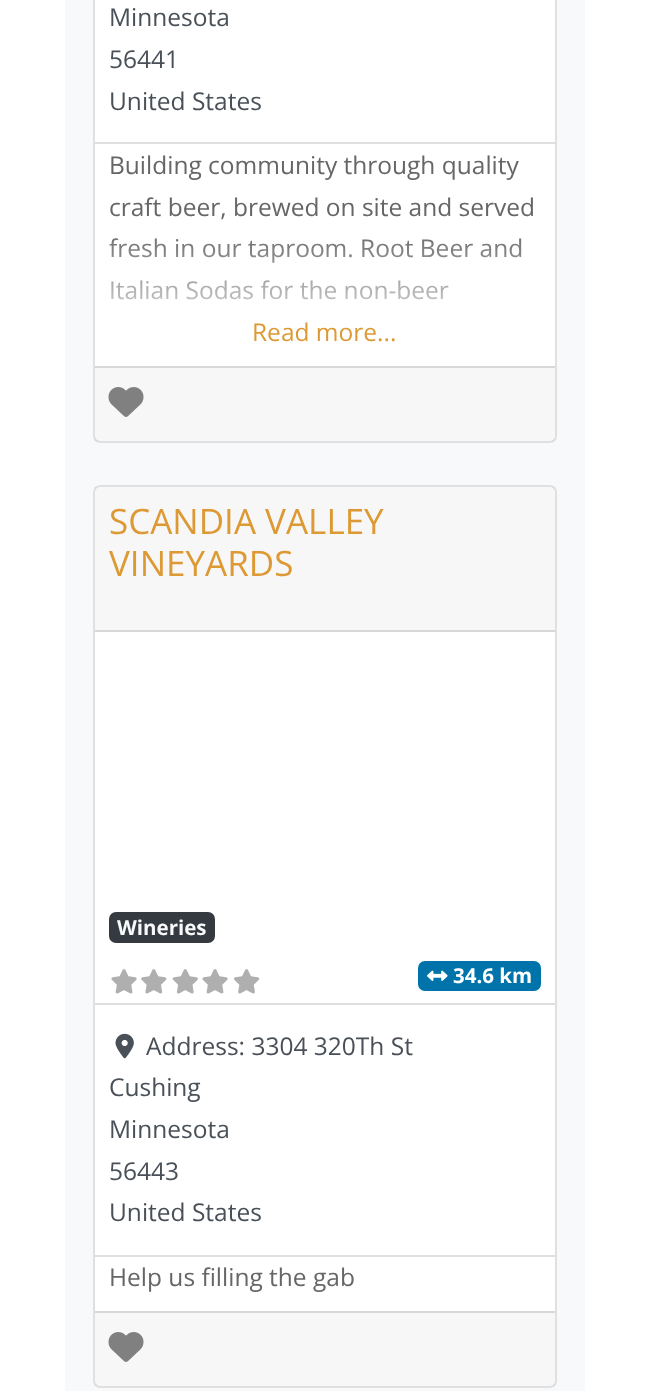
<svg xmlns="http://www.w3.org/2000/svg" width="648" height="1391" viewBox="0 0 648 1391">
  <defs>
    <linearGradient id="g1" gradientUnits="userSpaceOnUse" x1="325" y1="228" x2="325" y2="352"><stop offset="0" stop-color="rgb(255,255,255)" stop-opacity="0"/><stop offset="1" stop-color="rgb(255,255,255)"/></linearGradient>
  </defs>
  <rect width="100%" height="100%" fill="rgb(255,255,255)"/>
  <rect x="65" y="0" width="520" height="1391" fill="rgb(248,249,250)"/>
  <rect x="93" y="-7" width="464" height="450" rx="7" fill="rgb(255,255,255)"/>
  <rect x="94" y="-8" width="462" height="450" rx="6" fill="none" stroke="rgba(0,0,0,0.12)" stroke-width="2"/>
  <rect x="95" y="142" width="460" height="2" fill="rgb(223,223,223)"/>
  <g font-family="Open Sans" font-size="24.5" fill="rgb(73,80,87)">
    <text>
      <tspan x="109" y="26">Minnesota</tspan>
      <tspan x="109" y="68">56441</tspan>
      <tspan x="109" y="110">United States</tspan>
    </text>
  </g>
  <g font-family="Open Sans" font-size="24.5" fill="rgb(102,102,102)">
    <text>
      <tspan x="109" y="174">Building community through quality</tspan>
      <tspan x="109" y="216">craft beer, brewed on site and served</tspan>
      <tspan x="109" y="257">fresh in our taproom. Root Beer and</tspan>
      <tspan x="109" y="299">Italian Sodas for the non-beer</tspan>
    </text>
  </g>
  <rect x="109" y="238" width="412" height="62" fill="url(#g1)"/>
  <text x="252" y="341" font-family="Open Sans" font-size="24.5" fill="rgb(221,153,51)">Read more...</text>
  <rect x="95" y="368" width="460" height="73" fill="rgba(0,0,0,0.03)"/>
  <rect x="95" y="366" width="460" height="2" fill="rgb(216,216,216)"/>
  <image x="108" y="387" width="36" height="30" href="pic1.png"/>
  <rect x="93" y="485" width="464" height="903" rx="7" fill="rgb(255,255,255)"/>
  <rect x="94" y="486" width="462" height="901" rx="6" fill="none" stroke="rgba(0,0,0,0.12)" stroke-width="2"/>
  <rect x="95" y="487" width="460" height="143" fill="rgba(0,0,0,0.03)"/>
  <rect x="95" y="630" width="460" height="2" fill="rgb(216,216,216)"/>
  <g font-family="Open Sans" font-size="35" fill="rgb(221,153,51)">
    <text>
      <tspan x="109" y="534">SCANDIA VALLEY</tspan>
      <tspan x="109" y="576">VINEYARDS</tspan>
    </text>
  </g>
  <rect x="109" y="912" width="106" height="31" rx="7" fill="rgb(52,58,64)"/>
  <text x="117" y="935" font-family="Open Sans" font-size="20.5" font-weight="bold" fill="rgb(248,249,250)">Wineries</text>
  <image x="111" y="969" width="26" height="25" href="pic2.png"/>
  <image x="141" y="969" width="26" height="25" href="pic3.png"/>
  <image x="172" y="969" width="26" height="25" href="pic4.png"/>
  <image x="202" y="969" width="26" height="25" href="pic2.png"/>
  <image x="234" y="969" width="26" height="25" href="pic5.png"/>
  <rect x="418" y="961" width="123" height="30" rx="7" fill="rgb(0,115,170)"/>
  <image x="427" y="970" width="21" height="11" href="pic6.png"/>
  <text x="453" y="983" font-family="Open Sans" font-size="20.5" font-weight="bold" fill="rgb(255,255,255)">34.6 km</text>
  <rect x="95" y="1003" width="460" height="2" fill="rgb(223,223,223)"/>
  <rect x="95" y="1255" width="460" height="2" fill="rgb(223,223,223)"/>
  <image x="115" y="1033" width="19" height="26" href="pic7.png"/>
  <g font-family="Open Sans" font-size="24.5" fill="rgb(73,80,87)">
    <text x="146" y="1055">Address: 3304 320Th St</text>
    <text>
      <tspan x="109" y="1096">Cushing</tspan>
      <tspan x="109" y="1138">Minnesota</tspan>
      <tspan x="109" y="1180">56443</tspan>
      <tspan x="109" y="1221">United States</tspan>
    </text>
  </g>
  <text x="109" y="1286" font-family="Open Sans" font-size="24.5" fill="rgb(102,102,102)">Help us filling the gab</text>
  <rect x="95" y="1313" width="460" height="73" fill="rgba(0,0,0,0.03)"/>
  <rect x="95" y="1311" width="460" height="2" fill="rgb(216,216,216)"/>
  <image x="108" y="1332" width="36" height="30" href="pic1.png"/>
</svg>
